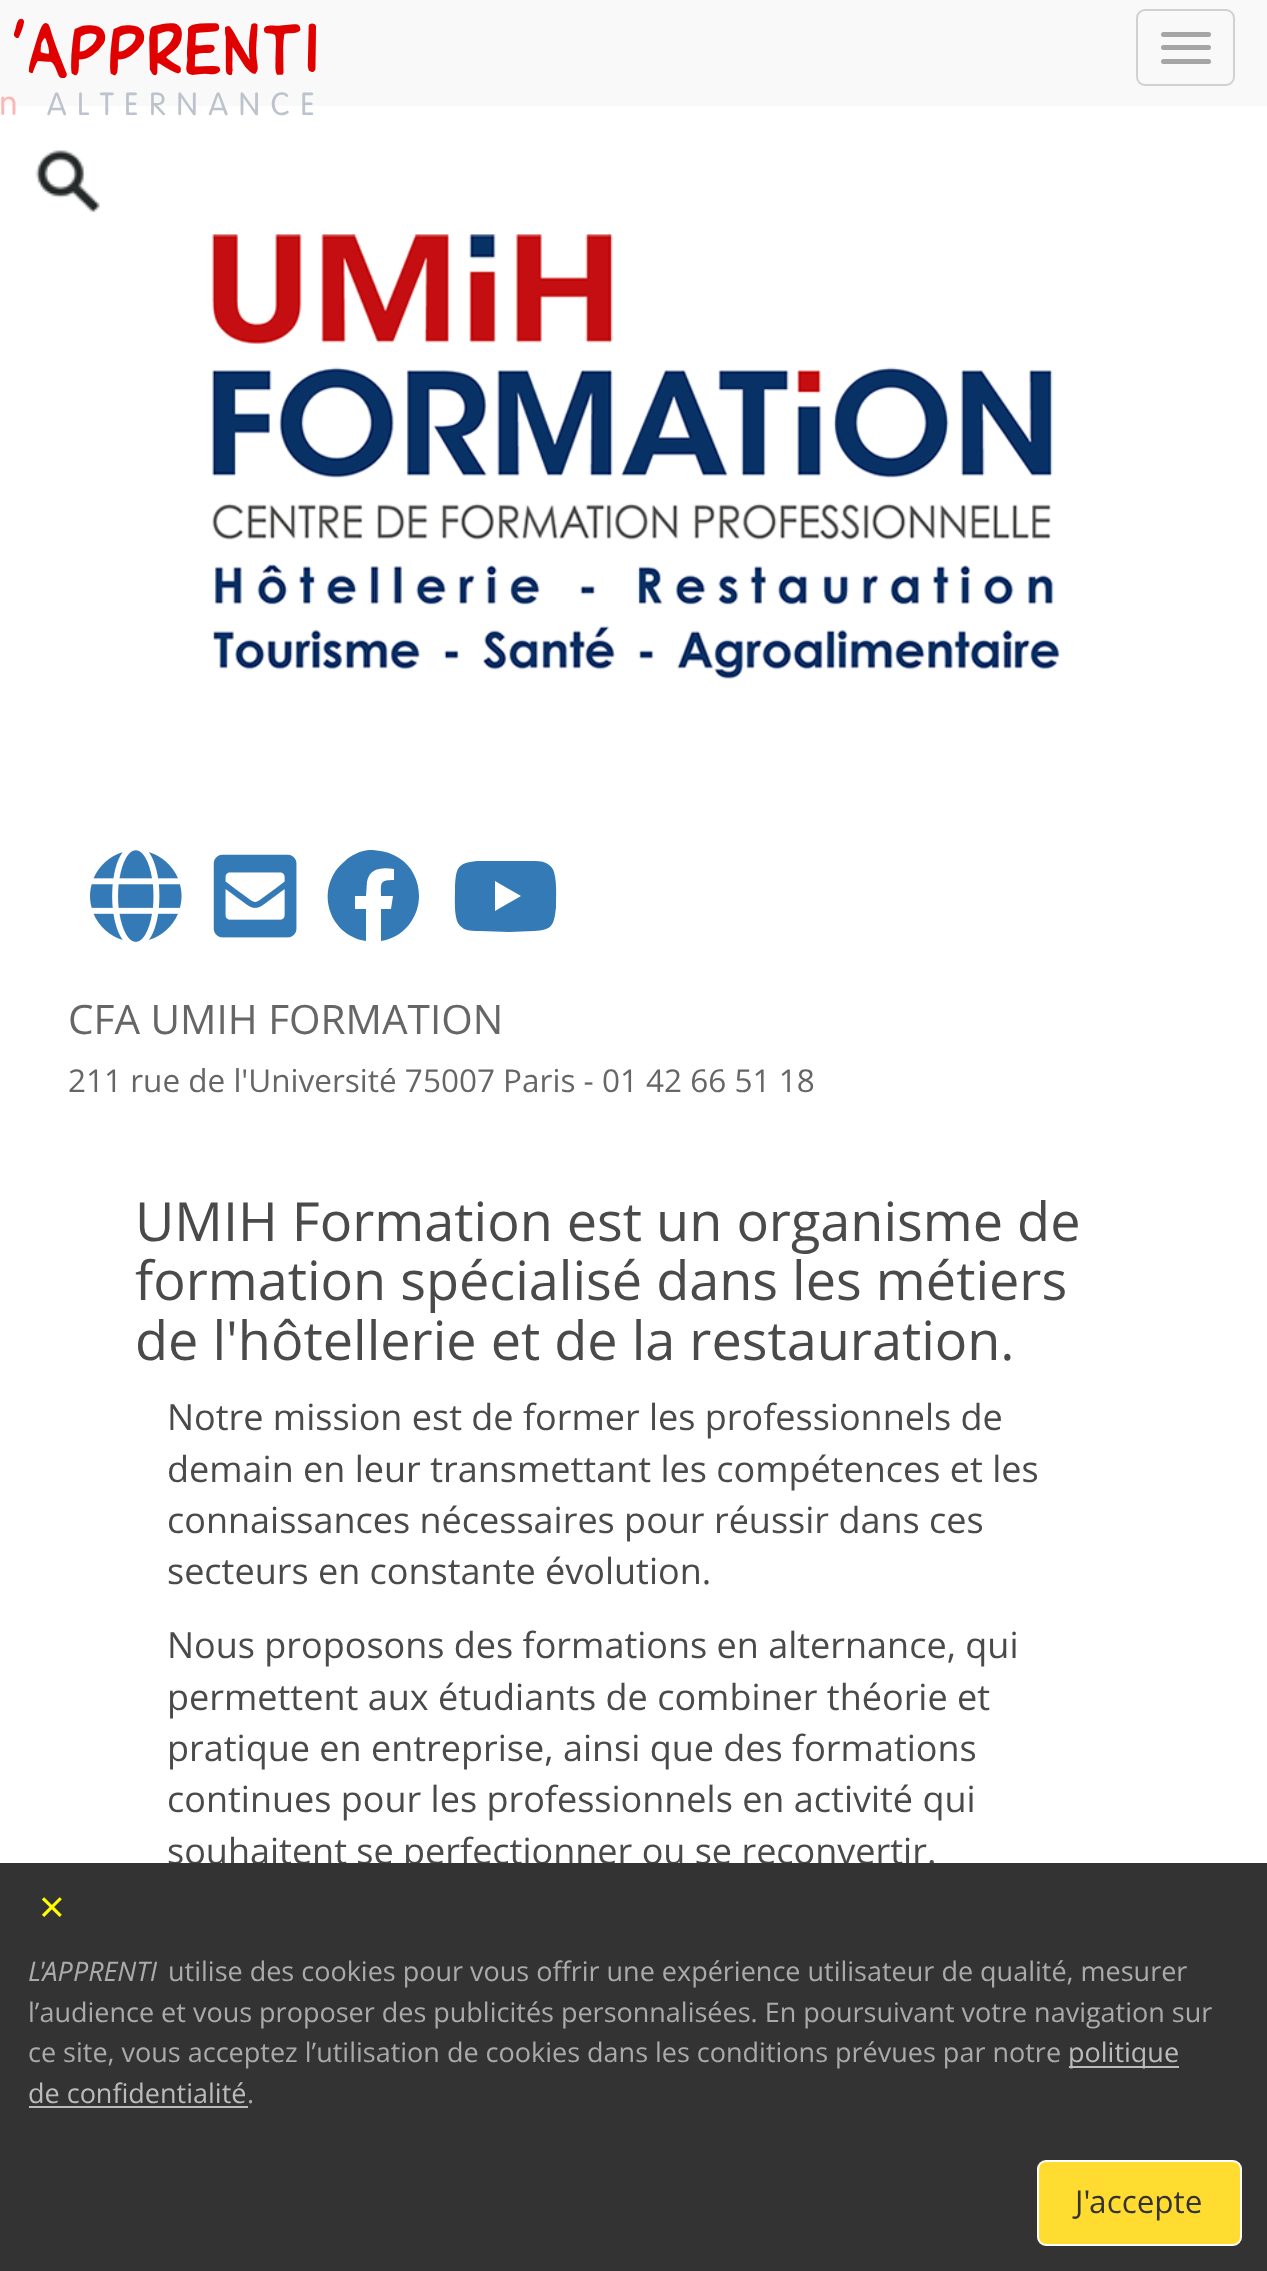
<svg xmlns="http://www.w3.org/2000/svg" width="1267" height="2271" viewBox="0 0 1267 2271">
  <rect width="100%" height="100%" fill="rgb(255,255,255)"/>
  <rect x="0" y="0" width="1267" height="106" fill="rgb(249,249,249)"/>
  <text x="14" y="74" font-family="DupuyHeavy" font-size="72" font-weight="900" letter-spacing="4" fill="rgb(225,0,0)">'APPRENTI</text>
  <image x="1" y="96" width="15" height="19" href="pic1.png"/>
  <text x="47" y="115" font-family="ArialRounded" font-size="31.5" letter-spacing="11" fill="rgb(189,195,205)">ALTERNANCE</text>
  <image x="35" y="150" width="65" height="63" href="pic2.png"/>
  <rect x="1137" y="10" width="97" height="75" rx="8" fill="none" stroke="rgb(209,209,209)" stroke-width="2"/>
  <rect x="1161" y="32" width="50" height="5" rx="2.5" fill="rgb(165,165,165)"/>
  <rect x="1161" y="45" width="50" height="5" rx="2.5" fill="rgb(165,165,165)"/>
  <rect x="1161" y="59" width="50" height="5" rx="2.5" fill="rgb(165,165,165)"/>
  <image x="212" y="234" width="848" height="445" href="pic3.png"/>
  <image x="90" y="850" width="92" height="92" href="pic4.png"/>
  <image x="213" y="854" width="84" height="84" href="pic5.png"/>
  <path d="M419 896C419 918 403 938 381 941V909H391L393 896H381C381 883 379 880 394 880V869C382 867 369 868 367 882L366 896H355V909H366V941C327 935 314 886 345 861C351 855 360 851 369 850C379 850 390 852 399 858C412 866 419 881 419 896Z" fill="rgb(51,122,183)"/>
  <path d="M554 872C557 883 556 896 556 907C554 926 552 930 534 931L509 932L480 931C475 931 469 931 464 929C461 927 458 924 457 921C454 912 455 898 455 888C456 868 457 863 477 861H504H531C536 861 542 861 546 863C550 865 553 868 554 872ZM495 911L521 896L495 881Z" fill="rgb(51,122,183)"/>
  <text x="68" y="1034" font-family="Open Sans" font-size="40.5" fill="rgb(102,102,102)">CFA UMIH FORMATION</text>
  <text x="68" y="1092" font-family="Open Sans" font-size="31.5" fill="rgb(102,102,102)">211 rue de l'Université 75007 Paris - 01 42 66 51 18</text>
  <g font-family="Open Sans" font-size="54" fill="rgb(74,74,74)">
    <text>
      <tspan x="135" y="1241">UMIH Formation est un organisme de</tspan>
      <tspan x="135" y="1300">formation spécialisé dans les métiers</tspan>
      <tspan x="135" y="1360">de l'hôtellerie et de la restauration.</tspan>
    </text>
  </g>
  <g font-family="Open Sans" font-size="36" fill="rgb(74,74,74)">
    <text>
      <tspan x="167" y="1430">Notre mission est de former les professionnels de</tspan>
      <tspan x="167" y="1482">demain en leur transmettant les compétences et les</tspan>
      <tspan x="167" y="1533">connaissances nécessaires pour réussir dans ces</tspan>
      <tspan x="167" y="1584">secteurs en constante évolution.</tspan>
    </text>
    <text>
      <tspan x="167" y="1658">Nous proposons des formations en alternance, qui</tspan>
      <tspan x="167" y="1710">permettent aux étudiants de combiner théorie et</tspan>
      <tspan x="167" y="1761">pratique en entreprise, ainsi que des formations</tspan>
      <tspan x="167" y="1812">continues pour les professionnels en activité qui</tspan>
      <tspan x="167" y="1864">souhaitent se perfectionner ou se reconvertir.</tspan>
    </text>
  </g>
  <rect x="0" y="1863" width="1267" height="408" fill="rgb(51,51,51)"/>
  <text x="39" y="1923" font-family="'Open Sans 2'" font-size="45" fill="rgb(255,255,0)">×</text>
  <text x="28" y="1981" font-family="Open Sans" font-size="27" font-style="italic" fill="rgb(170,170,170)">L'APPRENTI</text>
  <g font-family="Open Sans" font-size="27" fill="rgb(170,170,170)">
    <text x="168" y="1981">utilise des cookies pour vous offrir une expérience utilisateur de qualité, mesurer</text>
    <text>
      <tspan x="28" y="2022">l’audience et vous proposer des publicités personnalisées. En poursuivant votre navigation sur</tspan>
      <tspan x="28" y="2062">ce site, vous acceptez l’utilisation de cookies dans les conditions prévues par notre</tspan>
    </text>
  </g>
  <rect x="1069" y="2066" width="110" height="2" fill="rgb(187,187,187)"/>
  <g font-family="Open Sans" font-size="27" fill="rgb(187,187,187)">
    <text x="1068" y="2062">politique</text>
    <text x="28" y="2103">de confidentialité</text>
  </g>
  <rect x="29" y="2106" width="219" height="2" fill="rgb(187,187,187)"/>
  <text x="247" y="2103" font-family="Open Sans" font-size="27" fill="rgb(170,170,170)">.</text>
  <rect x="1038" y="2161" width="203" height="84" rx="8" fill="rgb(255,220,47)" stroke="rgb(255,255,255)" stroke-width="2"/>
  <text x="1075" y="2213" font-family="'Open Sans 2'" font-size="31.5" fill="rgb(51,51,51)">J'accepte</text>
</svg>
